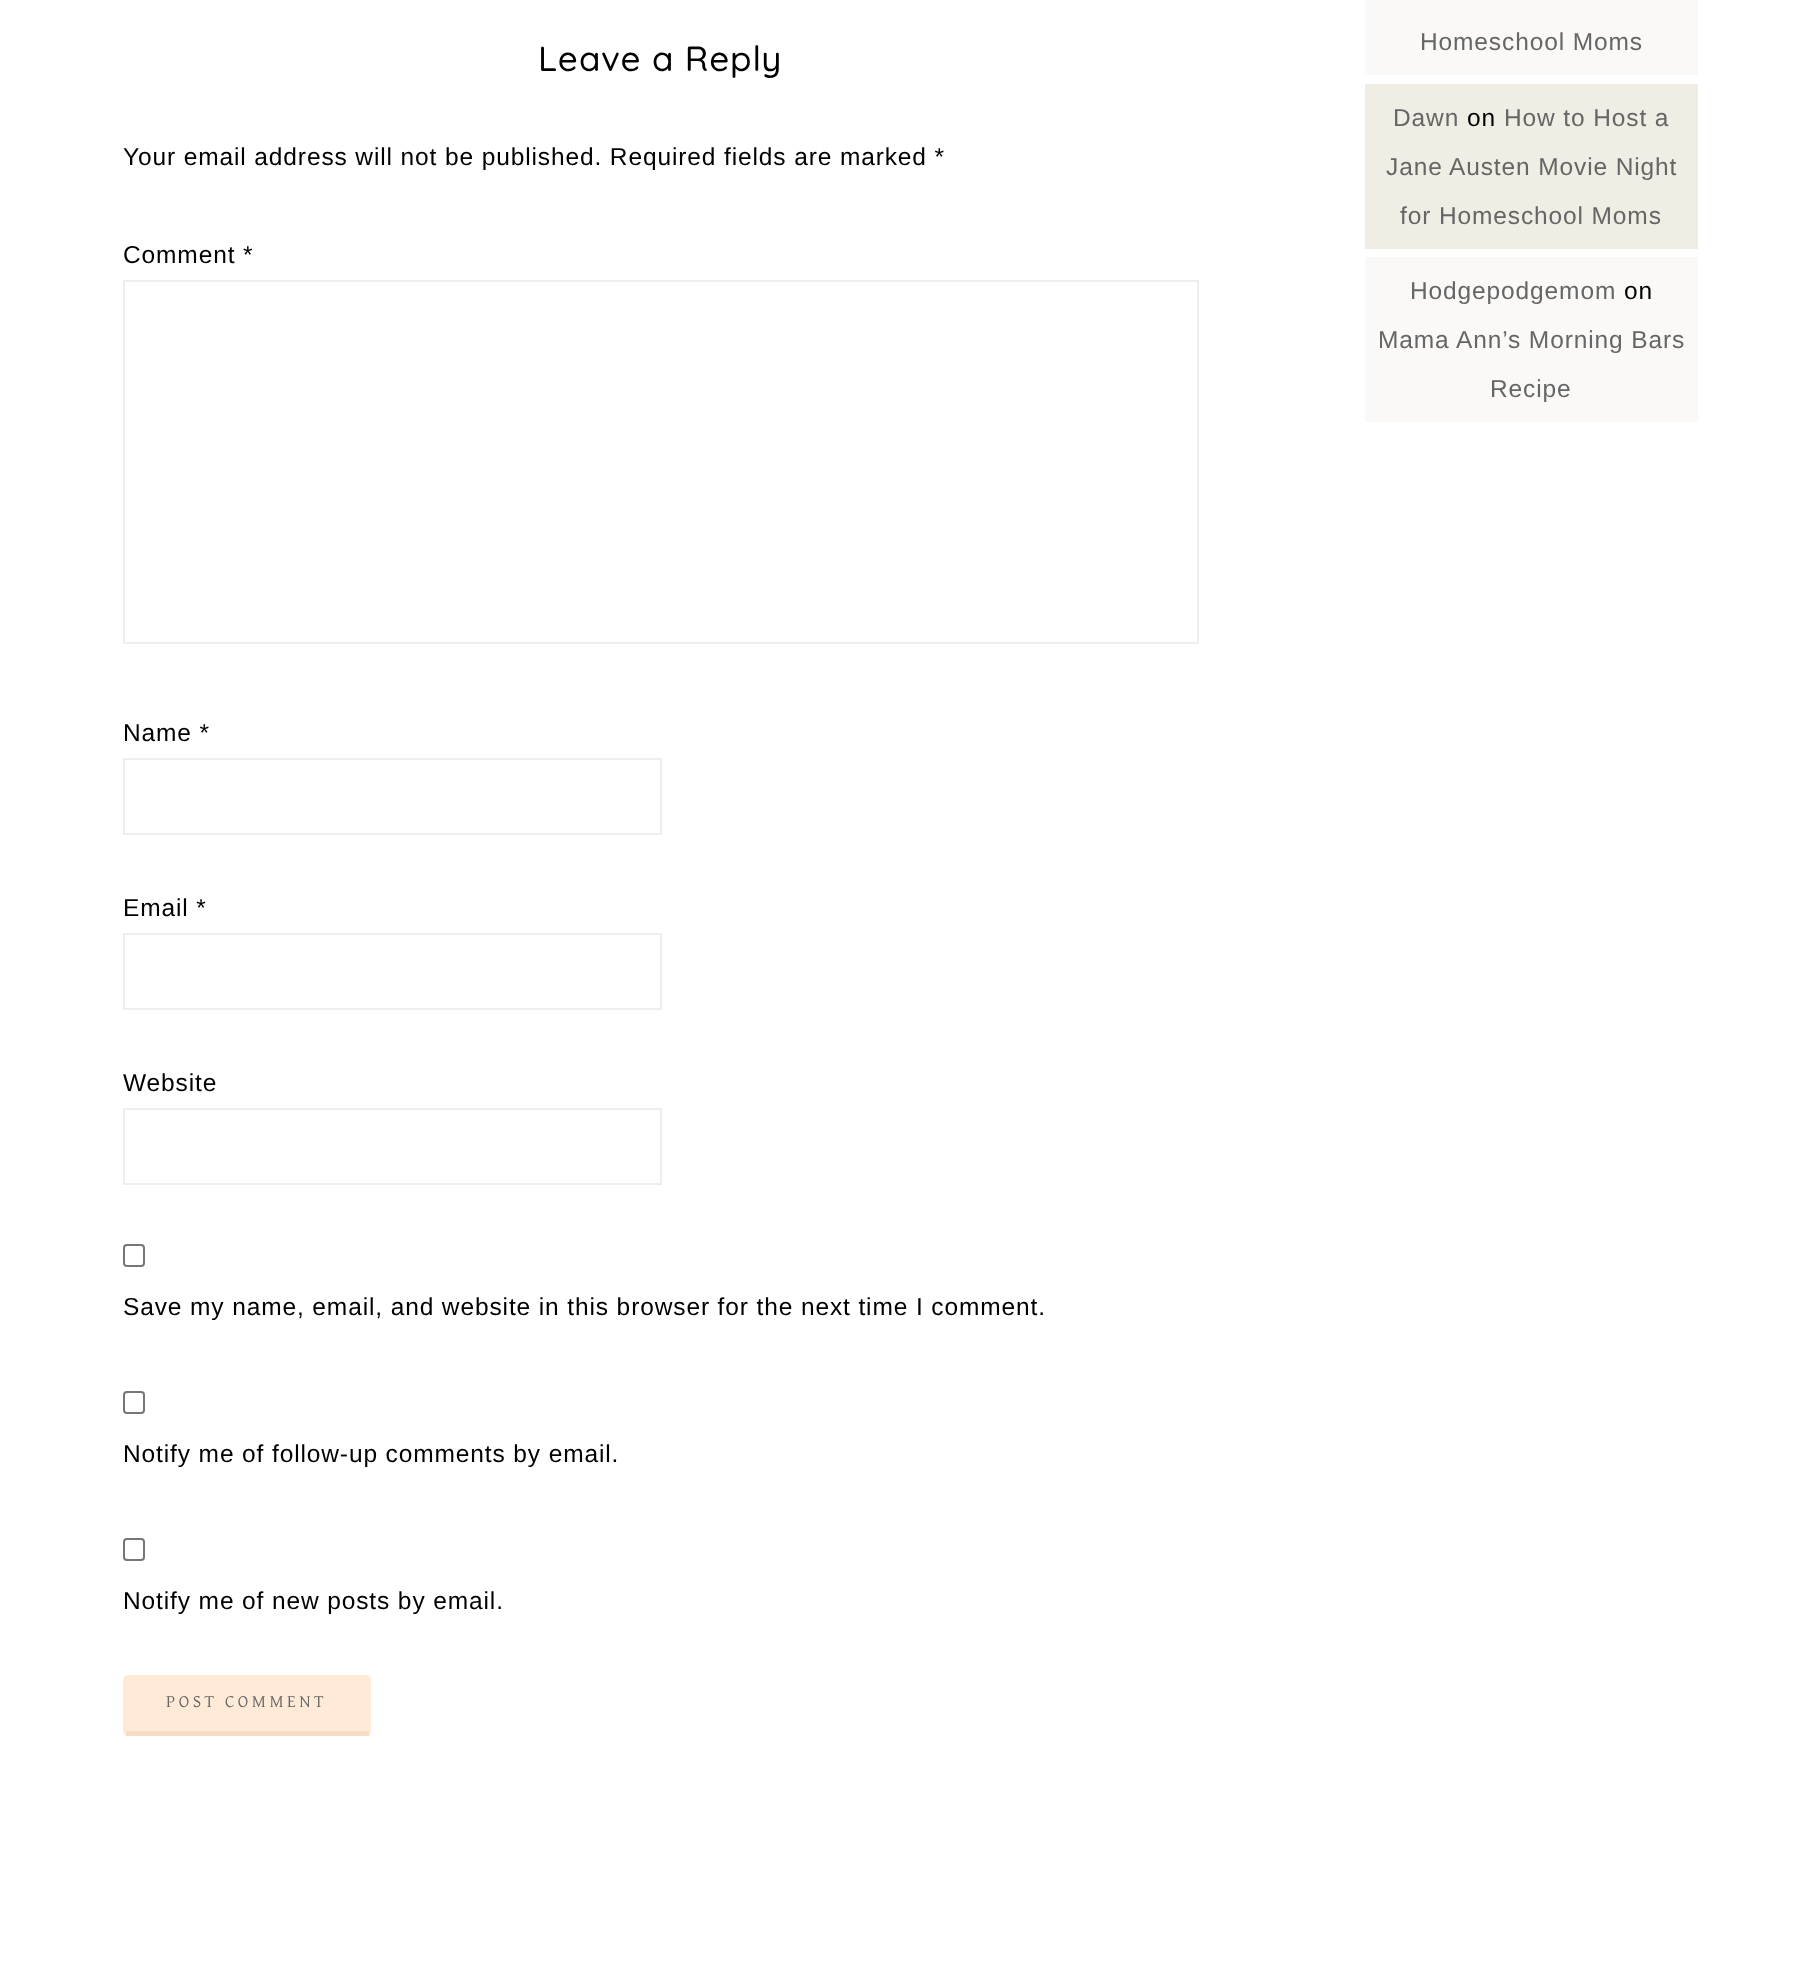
<svg xmlns="http://www.w3.org/2000/svg" width="1819" height="1961" viewBox="0 0 1819 1961">
  <rect width="100%" height="100%" fill="rgb(255,255,255)"/>
  <text x="538" y="71" font-family="Quicksand" font-size="35" font-weight="300" letter-spacing="0.88" fill="rgb(0,0,0)">Leave a Reply</text>
  <g font-family="Arimo" font-size="24.5" letter-spacing="0.88" fill="rgb(0,0,0)">
    <text x="123" y="165">Your email address will not be published. Required fields are marked *</text>
    <text x="123" y="263">Comment *</text>
  </g>
  <rect x="124" y="281" width="1074" height="362" fill="none" stroke="rgb(238,238,238)" stroke-width="2"/>
  <text x="123" y="741" font-family="Arimo" font-size="24.5" letter-spacing="0.88" fill="rgb(0,0,0)">Name *</text>
  <rect x="124" y="759" width="537" height="75" fill="none" stroke="rgb(238,238,238)" stroke-width="2"/>
  <text x="123" y="916" font-family="Arimo" font-size="24.5" letter-spacing="0.88" fill="rgb(0,0,0)">Email *</text>
  <rect x="124" y="934" width="537" height="75" fill="none" stroke="rgb(238,238,238)" stroke-width="2"/>
  <text x="123" y="1091" font-family="Arimo" font-size="24.5" letter-spacing="0.88" fill="rgb(0,0,0)">Website</text>
  <rect x="124" y="1109" width="537" height="75" fill="none" stroke="rgb(238,238,238)" stroke-width="2"/>
  <rect x="124" y="1245" width="20" height="21" rx="3" fill="none" stroke="rgb(118,118,118)" stroke-width="2"/>
  <text x="123" y="1315" font-family="Arimo" font-size="24.5" letter-spacing="0.88" fill="rgb(0,0,0)">Save my name, email, and website in this browser for the next time I comment.</text>
  <rect x="124" y="1392" width="20" height="21" rx="3" fill="none" stroke="rgb(118,118,118)" stroke-width="2"/>
  <text x="123" y="1462" font-family="Arimo" font-size="24.5" letter-spacing="0.88" fill="rgb(0,0,0)">Notify me of follow-up comments by email.</text>
  <rect x="124" y="1539" width="20" height="21" rx="3" fill="none" stroke="rgb(118,118,118)" stroke-width="2"/>
  <text x="123" y="1609" font-family="Arimo" font-size="24.5" letter-spacing="0.88" fill="rgb(0,0,0)">Notify me of new posts by email.</text>
  <rect x="123" y="1675" width="248" height="61" rx="5" fill="rgb(255,234,215)"/>
  <rect x="126" y="1731" width="243" height="5" fill="rgb(247,221,198)"/>
  <text x="166" y="1707" font-family="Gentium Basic" font-size="17.5" letter-spacing="3.5" fill="rgb(102,102,102)">POST COMMENT</text>
  <rect x="1365" y="0" width="333" height="75" fill="rgb(250,249,247)"/>
  <text x="1420" y="50" font-family="Arimo" font-size="24.5" letter-spacing="0.88" fill="rgb(102,102,102)">Homeschool Moms</text>
  <rect x="1365" y="84" width="333" height="165" fill="rgb(240,237,229)"/>
  <text x="1393" y="126" font-family="Arimo" font-size="24.5" letter-spacing="0.88" fill="rgb(102,102,102)">Dawn</text>
  <text x="1467" y="126" font-family="Arimo" font-size="24.5" letter-spacing="0.88" fill="rgb(0,0,0)">on</text>
  <g font-family="Arimo" font-size="24.5" letter-spacing="0.88" fill="rgb(102,102,102)">
    <text x="1504" y="126">How to Host a</text>
    <text x="1386" y="175">Jane Austen Movie Night</text>
    <text x="1400" y="224">for Homeschool Moms</text>
  </g>
  <rect x="1365" y="257" width="333" height="165" fill="rgb(250,249,247)"/>
  <text x="1410" y="299" font-family="Arimo" font-size="24.5" letter-spacing="0.88" fill="rgb(102,102,102)">Hodgepodgemom</text>
  <text x="1624" y="299" font-family="Arimo" font-size="24.5" letter-spacing="0.88" fill="rgb(0,0,0)">on</text>
  <g font-family="Arimo" font-size="24.5" letter-spacing="0.88" fill="rgb(102,102,102)">
    <text x="1378" y="348">Mama Ann’s Morning Bars</text>
    <text x="1490" y="397">Recipe</text>
  </g>
</svg>
